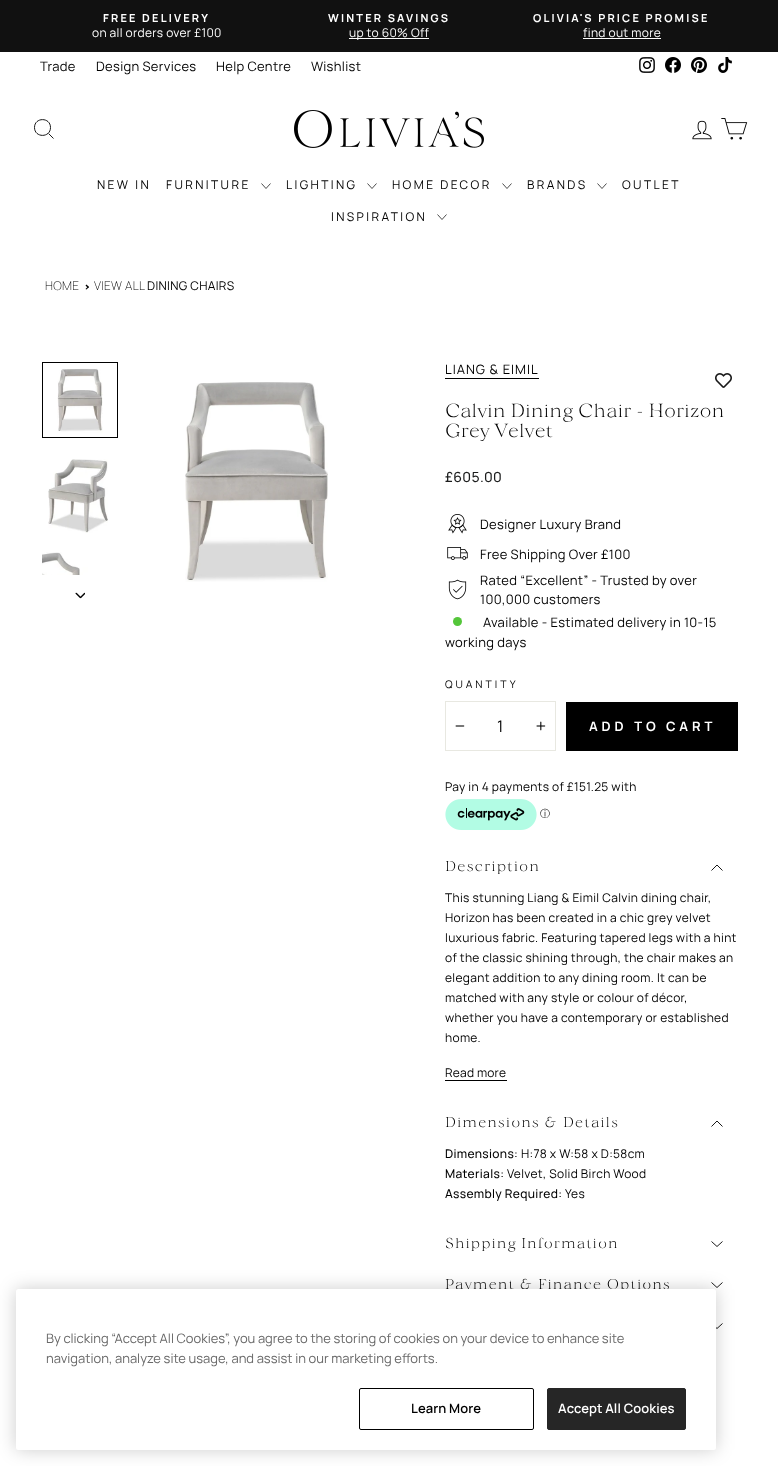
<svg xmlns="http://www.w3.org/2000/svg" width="778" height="1466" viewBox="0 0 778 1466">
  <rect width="100%" height="100%" fill="rgb(255,255,255)"/>
  <rect x="0" y="0" width="778" height="52" fill="rgb(17,17,17)"/>
  <text x="103" y="22" font-family="Manrope" font-size="11" font-weight="bold" letter-spacing="2.2" fill="rgb(255,255,255)">FREE DELIVERY</text>
  <text x="92" y="37" font-family="Manrope" font-size="12" letter-spacing="0.33" fill="rgb(255,255,255)">on all orders over £100</text>
  <text x="328" y="22" font-family="Manrope" font-size="11" font-weight="bold" letter-spacing="2.2" fill="rgb(255,255,255)">WINTER SAVINGS</text>
  <rect x="349" y="38" width="80" height="1" fill="rgb(255,255,255)"/>
  <text x="349" y="37" font-family="Manrope" font-size="12" letter-spacing="0.33" fill="rgb(255,255,255)">up to 60% Off</text>
  <text x="533" y="22" font-family="Manrope" font-size="11" font-weight="bold" letter-spacing="2.2" fill="rgb(255,255,255)">OLIVIA'S PRICE PROMISE</text>
  <text x="583" y="37" font-family="Manrope" font-size="12" letter-spacing="0.33" fill="rgb(255,255,255)">find out more</text>
  <rect x="583" y="38" width="78" height="1" fill="rgb(255,255,255)"/>
  <g font-family="Manrope" font-size="13" letter-spacing="0.33" fill="rgb(0,0,0)">
    <text x="40" y="71">Trade</text>
    <text x="96" y="71">Design Services</text>
    <text x="216" y="71">Help Centre</text>
    <text x="311" y="71">Wishlist</text>
  </g>
  <image x="639" y="57" width="16" height="16" href="pic1.png"/>
  <image x="665" y="57" width="16" height="16" href="pic2.png"/>
  <image x="691" y="57" width="16" height="16" href="pic3.png"/>
  <image x="718" y="57" width="14" height="16" href="pic4.png"/>
  <path d="M50.5 127.5C50.5 138 34.5 138 34.5 127.5C34.5 117 50.5 117 50.5 127.5ZM53.5 138.5L48.5 133.5" fill="none" stroke="rgb(0,0,0)" stroke-width="0.9"/>
  <image x="294" y="110" width="190" height="38" href="pic5.png"/>
  <image x="692" y="120" width="20" height="20" href="pic6.png"/>
  <image x="721" y="118" width="27" height="22" href="pic7.png"/>
  <g font-family="Manrope" font-size="12" letter-spacing="2.4" fill="rgb(0,0,0)">
    <text x="97" y="189">NEW IN</text>
    <text x="166" y="189">FURNITURE</text>
  </g>
  <path d="M261.5 183.5L266 188.5L270.5 183.5" fill="none" stroke="rgb(0,0,0)" stroke-width="0.7"/>
  <text x="286" y="189" font-family="Manrope" font-size="12" letter-spacing="2.4" fill="rgb(0,0,0)">LIGHTING</text>
  <path d="M367.5 183.5L372 188.5L376.5 183.5" fill="none" stroke="rgb(0,0,0)" stroke-width="0.7"/>
  <text x="392" y="189" font-family="Manrope" font-size="12" letter-spacing="2.4" fill="rgb(0,0,0)">HOME DECOR</text>
  <path d="M502.5 183.5L507 188.5L511.5 183.5" fill="none" stroke="rgb(0,0,0)" stroke-width="0.7"/>
  <text x="527" y="189" font-family="Manrope" font-size="12" letter-spacing="2.4" fill="rgb(0,0,0)">BRANDS</text>
  <path d="M597.5 183.5L602 188.5L606.5 183.5" fill="none" stroke="rgb(0,0,0)" stroke-width="0.7"/>
  <g font-family="Manrope" font-size="12" letter-spacing="2.4" fill="rgb(0,0,0)">
    <text x="622" y="189">OUTLET</text>
    <text x="331" y="221">INSPIRATION</text>
  </g>
  <path d="M437.5 214.5L442 219.5L446.5 214.5" fill="none" stroke="rgb(0,0,0)" stroke-width="0.7"/>
  <text x="45" y="290" font-family="Manrope" font-size="12" font-weight="200" letter-spacing="0.33" fill="rgb(0,0,0)">HOME</text>
  <path d="M86.5 284.5L89 287L88 288L85.5 285.5Z" fill="rgb(0,0,0)"/>
  <path d="M88 286.5L89 287L86.5 289.5L85.5 289Z" fill="rgb(0,0,0)"/>
  <text x="94" y="290" font-family="Manrope" font-size="12" font-weight="200" letter-spacing="0.33" fill="rgb(0,0,0)">VIEW ALL</text>
  <text x="147" y="290" font-family="Manrope" font-size="12" letter-spacing="0.33" fill="rgb(0,0,0)">DINING CHAIRS</text>
  <image x="57" y="368" width="46" height="65" href="pic8.png"/>
  <rect x="42.5" y="362.5" width="75" height="75" fill="none" stroke="rgb(0,0,0)"/>
  <image x="48" y="459" width="60" height="74" href="pic9.png"/>
  <image x="42" y="552" width="46" height="23" href="pic10.png"/>
  <image x="75" y="592" width="10" height="7" href="pic11.png"/>
  <image x="185" y="382" width="143" height="200" href="pic12.png"/>
  <rect x="445" y="378" width="94" height="1" fill="rgb(0,0,0)"/>
  <text x="445" y="374" font-family="Manrope" font-size="13" letter-spacing="1" fill="rgb(0,0,0)">LIANG &amp; EIMIL</text>
  <image x="715" y="373" width="17" height="15" href="pic13.png"/>
  <g font-family="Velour" font-size="20" fill="rgb(0,0,0)">
    <text>
      <tspan x="445" y="417">Calvin Dining Chair - Horizon</tspan>
      <tspan x="445" y="437">Grey Velvet</tspan>
    </text>
  </g>
  <text x="445" y="482" font-family="Manrope" font-size="14" font-weight="500" letter-spacing="0.33" fill="rgb(28,29,29)">£605.00</text>
  <image x="448" y="514" width="19" height="20" href="pic14.png"/>
  <text x="480" y="529" font-family="Manrope" font-size="13" letter-spacing="0.33" fill="rgb(0,0,0)">Designer Luxury Brand</text>
  <image x="447" y="547" width="21" height="13" href="pic15.png"/>
  <text x="480" y="559" font-family="Manrope" font-size="13" letter-spacing="0.33" fill="rgb(0,0,0)">Free Shipping Over £100</text>
  <image x="448" y="579" width="19" height="21" href="pic16.png"/>
  <g font-family="Manrope" font-size="13" letter-spacing="0.33" fill="rgb(0,0,0)">
    <text>
      <tspan x="480" y="585">Rated “Excellent” - Trusted by over</tspan>
      <tspan x="480" y="604">100,000 customers</tspan>
    </text>
  </g>
  <circle cx="457.5" cy="621.5" r="4.5" fill="rgb(84,198,58)"/>
  <g font-family="Manrope" font-size="13" letter-spacing="0.33" fill="rgb(0,0,0)">
    <text x="483" y="627">Available - Estimated delivery in 10-15</text>
    <text x="445" y="647">working days</text>
  </g>
  <text x="445" y="688" font-family="Manrope" font-size="10.5" letter-spacing="3" fill="rgb(0,0,0)">QUANTITY</text>
  <rect x="445.5" y="701.5" width="110" height="49" fill="none" stroke="rgb(232,232,225)"/>
  <image x="455" y="725" width="10" height="2" href="pic17.png"/>
  <text x="497" y="732" font-family="Manrope" font-size="16" fill="rgb(0,0,0)">1</text>
  <image x="536" y="721" width="10" height="10" href="pic18.png"/>
  <rect x="566" y="702" width="172" height="49" fill="rgb(0,0,0)"/>
  <text x="589" y="731" font-family="Manrope" font-size="13" font-weight="bold" letter-spacing="3.9" fill="rgb(255,255,255)">ADD TO CART</text>
  <text x="445" y="791" font-family="Manrope" font-size="12" letter-spacing="0.33" fill="rgb(0,0,0)">Pay in 4 payments of £151.25 with</text>
  <image x="445" y="799" width="92" height="31" href="pic19.png"/>
  <text x="540" y="817" font-family="WenQuanYi Zen Hei" font-size="10" font-weight="500" fill="rgb(0,0,0)">ⓘ</text>
  <text x="445" y="871" font-family="Velour" font-size="15.25" letter-spacing="1" fill="rgb(0,0,0)">Description</text>
  <path d="M711.5 870.5L717 865L722.5 870.5" fill="none" stroke="rgb(0,0,0)" stroke-width="0.9"/>
  <g font-family="Manrope" font-size="12" letter-spacing="0.33" fill="rgb(0,0,0)">
    <text>
      <tspan x="445" y="902">This stunning Liang &amp; Eimil Calvin dining chair,</tspan>
      <tspan x="445" y="922">Horizon has been created in a chic grey velvet</tspan>
      <tspan x="445" y="942">luxurious fabric. Featuring tapered legs with a hint</tspan>
      <tspan x="445" y="962">of the classic shining through, the chair makes an</tspan>
      <tspan x="445" y="982">elegant addition to any dining room. It can be</tspan>
      <tspan x="445" y="1002">matched with any style or colour of décor,</tspan>
      <tspan x="445" y="1022">whether you have a contemporary or established</tspan>
      <tspan x="445" y="1042">home.</tspan>
    </text>
  </g>
  <text x="445" y="1077" font-family="Manrope" font-size="12" letter-spacing="0.25" fill="rgb(0,0,0)">Read more</text>
  <rect x="445" y="1080" width="62" height="1" fill="rgb(0,0,0)"/>
  <text x="445" y="1127" font-family="Velour" font-size="15" letter-spacing="1" fill="rgb(0,0,0)">Dimensions &amp; Details</text>
  <path d="M711.5 1126.5L717 1121L722.5 1126.5" fill="none" stroke="rgb(0,0,0)" stroke-width="0.9"/>
  <text x="445" y="1158" font-family="Manrope" font-size="12" font-weight="500" letter-spacing="0.33" fill="rgb(0,0,0)">Dimensions:</text>
  <text x="521" y="1158" font-family="Manrope" font-size="12" letter-spacing="0.33" fill="rgb(0,0,0)">H:78 x W:58 x D:58cm</text>
  <text x="445" y="1178" font-family="Manrope" font-size="12" font-weight="500" letter-spacing="0.33" fill="rgb(0,0,0)">Materials:</text>
  <text x="507" y="1178" font-family="Manrope" font-size="12" letter-spacing="0.33" fill="rgb(0,0,0)">Velvet, Solid Birch Wood</text>
  <text x="445" y="1198" font-family="Manrope" font-size="12" font-weight="500" letter-spacing="0.33" fill="rgb(0,0,0)">Assembly Required:</text>
  <text x="565" y="1198" font-family="Manrope" font-size="12" letter-spacing="0.33" fill="rgb(0,0,0)">Yes</text>
  <text x="445" y="1248" font-family="Velour" font-size="15" letter-spacing="1" fill="rgb(0,0,0)">Shipping Information</text>
  <path d="M711.5 1241.5L717 1246.5L722.5 1241.5" fill="none" stroke="rgb(0,0,0)" stroke-width="0.9"/>
  <text x="445" y="1289" font-family="Velour" font-size="15" letter-spacing="1" fill="rgb(0,0,0)">Payment &amp; Finance Options</text>
  <path d="M711.5 1282.5L717 1287.5L722.5 1282.5M711.5 1323.5L717 1328.5L722.5 1323.5" fill="none" stroke="rgb(0,0,0)" stroke-width="0.9"/>
  <rect x="16" y="1289" width="700" height="161" rx="2.5" fill="rgba(0,0,0,0.2)" filter="blur(9px)"/>
  <rect x="16" y="1289" width="700" height="161" rx="2.5" fill="rgb(255,255,255)"/>
  <g font-family="Manrope" font-size="13" fill="rgb(105,105,105)">
    <text>
      <tspan x="46" y="1343">By clicking “Accept All Cookies”, you agree to the storing of cookies on your device to enhance site</tspan>
      <tspan x="46" y="1363">navigation, analyze site usage, and assist in our marketing efforts.</tspan>
    </text>
  </g>
  <rect x="359.5" y="1388.5" width="174" height="41" rx="1.5" fill="none" stroke="rgb(0,0,0)"/>
  <text x="411" y="1413" font-family="Manrope" font-size="13" font-weight="600" letter-spacing="0.1" fill="rgb(0,0,0)">Learn More</text>
  <rect x="547.5" y="1388.5" width="138" height="41" rx="1.5" fill="rgb(38,38,38)" stroke="rgb(38,38,38)"/>
  <text x="558" y="1413" font-family="Manrope" font-size="13" font-weight="600" letter-spacing="0.1" fill="rgb(255,255,255)">Accept All Cookies</text>
</svg>
